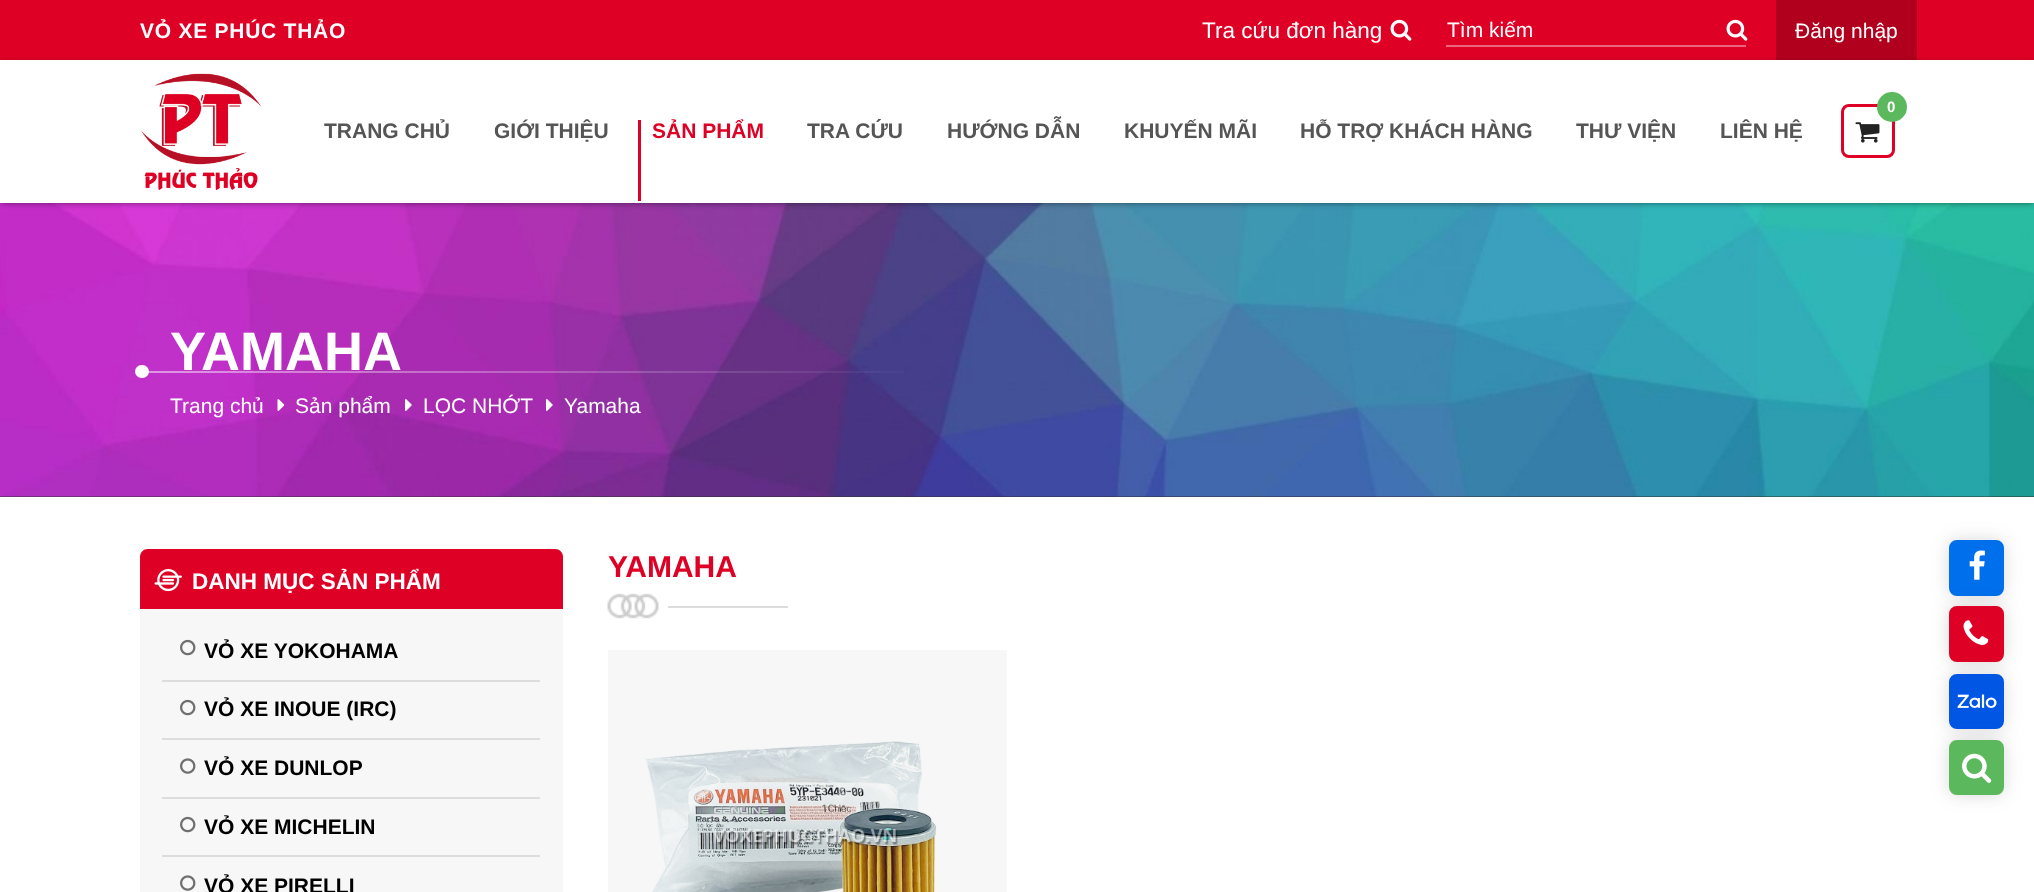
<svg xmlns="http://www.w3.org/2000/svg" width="2034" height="892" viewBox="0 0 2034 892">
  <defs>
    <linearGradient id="g1" gradientUnits="userSpaceOnUse" x1="135" y1="371" x2="939" y2="371"><stop offset="0" stop-color="rgb(255,255,255)" stop-opacity="0.5"/><stop offset="1" stop-color="rgb(255,255,255)" stop-opacity="0"/></linearGradient>
  </defs>
  <rect width="100%" height="100%" fill="rgb(255,255,255)"/>
  <rect x="608" y="650" width="399" height="242" fill="rgb(247,247,247)"/>
  <rect x="0" y="0" width="2034" height="60" fill="rgb(222,0,37)"/>
  <text x="140" y="38" font-family="Arimo" font-size="21" font-weight="bold" letter-spacing="0.75" fill="rgb(255,255,255)">VỎ XE PHÚC THẢO</text>
  <text x="1202" y="38" font-family="Arimo" font-size="22.5" fill="rgb(255,255,255)">Tra cứu đơn hàng</text>
  <image x="1390" y="19" width="22" height="22" href="pic1.png"/>
  <rect x="1446" y="45" width="300" height="2" fill="rgb(235,102,124)"/>
  <text x="1447" y="37" font-family="Arimo" font-size="21" fill="rgb(255,255,255)">Tìm kiếm</text>
  <image x="1726" y="19" width="22" height="22" href="pic1.png"/>
  <rect x="0" y="496" width="2034" height="1" fill="rgb(51,51,51)"/>
  <image x="0" y="203" width="2034" height="294" href="pic4.png"/>
  <rect x="2" y="63" width="2031" height="140" fill="rgba(0,0,0,0.5)" filter="blur(3px)"/>
  <rect x="1776" y="0" width="141" height="60" fill="rgba(0,0,0,0.2)"/>
  <text x="1795" y="38" font-family="Arimo" font-size="21" fill="rgb(255,255,255)">Đăng nhập</text>
  <rect x="0" y="60" width="2034" height="143" fill="rgb(255,255,255)"/>
  <image x="141" y="73" width="121" height="117" href="pic2.png"/>
  <rect x="1842.5" y="105.5" width="51" height="51" rx="6.5" fill="none" stroke="rgb(222,0,37)" stroke-width="3"/>
  <circle cx="1892" cy="107" r="15" fill="rgb(92,184,92)"/>
  <text x="1887" y="112" font-family="Arimo" font-size="15" font-weight="bold" fill="rgb(255,255,255)">0</text>
  <image x="1855" y="122" width="25" height="21" href="pic3.png"/>
  <g font-family="Arimo" font-size="21" font-weight="bold" fill="rgb(85,85,85)">
    <text x="324" y="138">TRANG CHỦ</text>
    <text x="494" y="138">GIỚI THIỆU</text>
  </g>
  <rect x="638" y="120" width="3" height="81" fill="rgb(222,0,37)"/>
  <text x="652" y="138" font-family="Arimo" font-size="21" font-weight="bold" fill="rgb(222,0,37)">SẢN PHẨM</text>
  <g font-family="Arimo" font-size="21" font-weight="bold" fill="rgb(85,85,85)">
    <text x="807" y="138">TRA CỨU</text>
    <text x="947" y="138">HƯỚNG DẪN</text>
    <text x="1124" y="138">KHUYẾN MÃI</text>
    <text x="1300" y="138">HỖ TRỢ KHÁCH HÀNG</text>
    <text x="1576" y="138">THƯ VIỆN</text>
    <text x="1720" y="138">LIÊN HỆ</text>
  </g>
  <text x="170" y="370" font-family="Arimo" font-size="54" font-weight="bold" fill="rgb(255,255,255)">YAMAHA</text>
  <rect x="135" y="365" width="14" height="13" rx="6.5" fill="rgb(255,255,255)"/>
  <rect x="135" y="371" width="769" height="2" fill="url(#g1)"/>
  <text x="170" y="413" font-family="Arimo" font-size="21" fill="rgb(255,255,255)">Trang chủ</text>
  <image x="277" y="399" width="8" height="12" href="pic5.png"/>
  <text x="295" y="413" font-family="Arimo" font-size="21" fill="rgb(255,255,255)">Sản phẩm</text>
  <image x="405" y="399" width="7" height="12" href="pic6.png"/>
  <text x="423" y="413" font-family="Arimo" font-size="21" fill="rgb(255,255,255)">LỌC NHỚT</text>
  <image x="546" y="399" width="7" height="12" href="pic7.png"/>
  <text x="564" y="413" font-family="Arimo" font-size="21" fill="rgb(255,255,255)">Yamaha</text>
  <rect x="140" y="549" width="423" height="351" rx="8" fill="rgb(247,247,247)"/>
  <path d="M148 549H555C559.5 549 563 552.5 563 557V609H140V557C140 552.5 143.5 549 148 549Z" fill="rgb(222,0,37)"/>
  <image x="154" y="569" width="28" height="23" href="pic8.png"/>
  <text x="192" y="589" font-family="Arimo" font-size="22.5" font-weight="bold" fill="rgb(255,255,255)">DANH MỤC SẢN PHẨM</text>
  <image x="180" y="639" width="16" height="17" href="pic9.png"/>
  <text x="204" y="658" font-family="Arimo" font-size="21" font-weight="bold" fill="rgb(0,0,0)">VỎ XE YOKOHAMA</text>
  <rect x="162" y="680" width="378" height="2" fill="rgb(221,221,221)"/>
  <image x="180" y="699" width="16" height="17" href="pic9.png"/>
  <text x="204" y="716" font-family="Arimo" font-size="21" font-weight="bold" fill="rgb(0,0,0)">VỎ XE INOUE (IRC)</text>
  <rect x="162" y="738" width="378" height="2" fill="rgb(221,221,221)"/>
  <image x="180" y="758" width="16" height="16" href="pic10.png"/>
  <text x="204" y="775" font-family="Arimo" font-size="21" font-weight="bold" fill="rgb(0,0,0)">VỎ XE DUNLOP</text>
  <rect x="162" y="797" width="378" height="2" fill="rgb(221,221,221)"/>
  <image x="180" y="816" width="16" height="17" href="pic9.png"/>
  <text x="204" y="834" font-family="Arimo" font-size="21" font-weight="bold" fill="rgb(0,0,0)">VỎ XE MICHELIN</text>
  <rect x="162" y="855" width="378" height="2" fill="rgb(221,221,221)"/>
  <image x="180" y="875" width="16" height="16" href="pic10.png"/>
  <text x="204" y="893" font-family="Arimo" font-size="21" font-weight="bold" fill="rgb(0,0,0)">VỎ XE PIRELLI</text>
  <text x="608" y="577" font-family="Arimo" font-size="30" font-weight="bold" fill="rgb(222,0,37)">YAMAHA</text>
  <image x="607" y="593" width="52" height="26" href="pic11.png"/>
  <rect x="668" y="606" width="120" height="2" fill="rgb(221,221,221)"/>
  <image x="646" y="741" width="291" height="151" href="pic12.png"/>
  <rect x="1949" y="540" width="55" height="56" rx="8" fill="rgba(68,68,68,0.2)" filter="blur(9px)"/>
  <rect x="1950" y="541" width="53" height="54" rx="7" fill="rgb(0,111,236)" stroke="rgb(0,111,236)" stroke-width="2"/>
  <image x="1969" y="550" width="16" height="30" href="pic13.png"/>
  <rect x="1949" y="606" width="55" height="56" rx="8" fill="rgba(68,68,68,0.2)" filter="blur(9px)"/>
  <rect x="1950" y="607" width="53" height="54" rx="7" fill="rgb(222,0,37)" stroke="rgb(222,0,37)" stroke-width="2"/>
  <image x="1963" y="620" width="26" height="25" href="pic14.png"/>
  <rect x="1949" y="674" width="55" height="55" rx="8" fill="rgba(68,68,68,0.2)" filter="blur(9px)"/>
  <rect x="1950" y="675" width="53" height="53" rx="7" fill="rgb(1,86,228)" stroke="rgb(1,86,228)" stroke-width="2"/>
  <image x="1957" y="694" width="40" height="14" href="pic15.png"/>
  <rect x="1949" y="740" width="55" height="55" rx="8" fill="rgba(68,68,68,0.2)" filter="blur(9px)"/>
  <rect x="1950" y="741" width="53" height="53" rx="7" fill="rgb(92,184,92)" stroke="rgb(92,184,92)" stroke-width="2"/>
  <image x="1962" y="753" width="30" height="30" href="pic16.png"/>
</svg>
